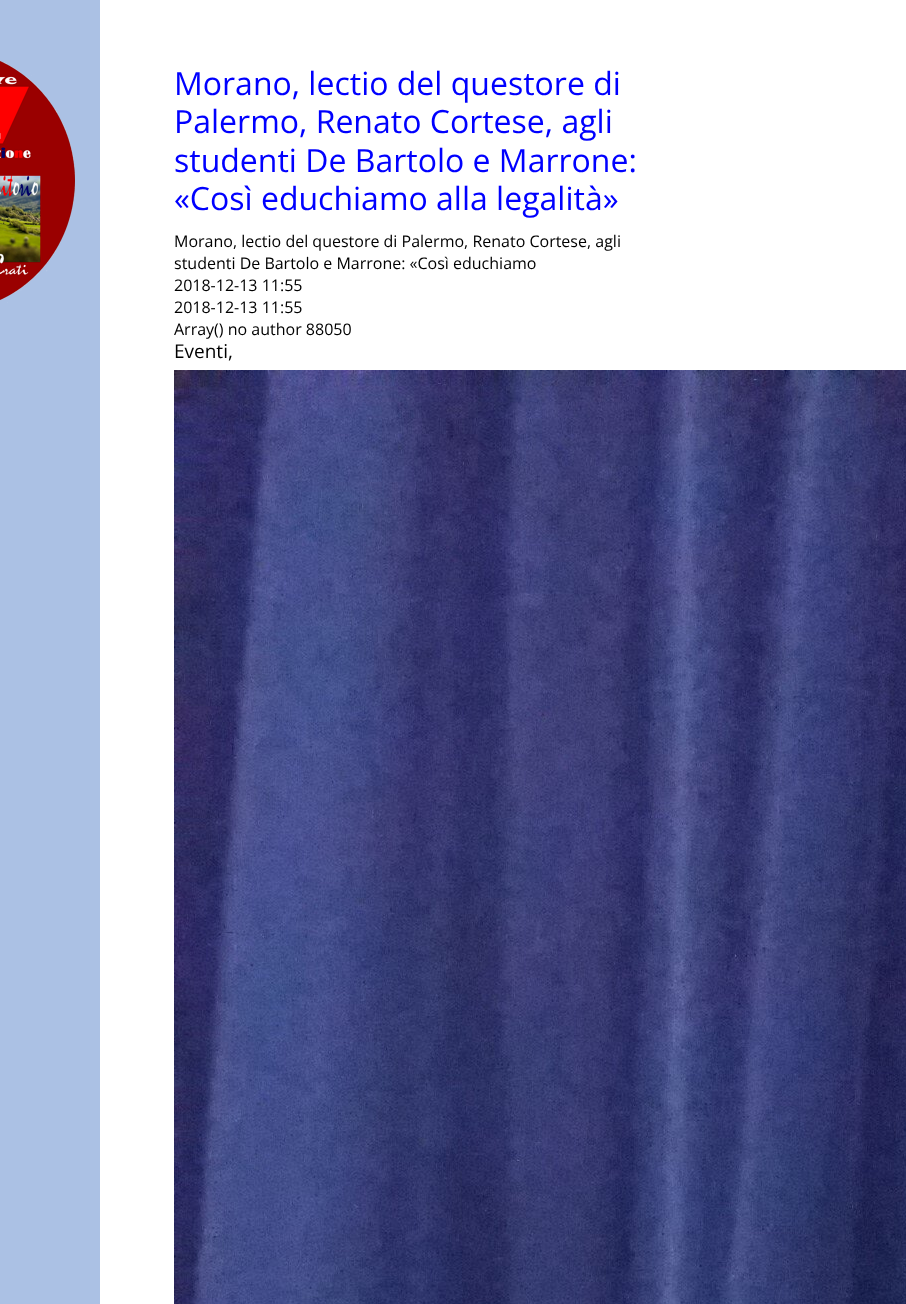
<svg xmlns="http://www.w3.org/2000/svg" width="906" height="1304" viewBox="0 0 906 1304">
  <rect width="100%" height="100%" fill="rgb(255,255,255)"/>
  <rect x="0" y="0" width="100" height="1304" fill="rgb(171,193,228)"/>
  <image x="0" y="61" width="75" height="242" href="pic1.png"/>
  <g font-family="Open Sans" font-size="32" fill="rgb(0,0,255)">
    <text>
      <tspan x="174" y="95">Morano, lectio del questore di</tspan>
      <tspan x="174" y="133">Palermo, Renato Cortese, agli</tspan>
      <tspan x="174" y="172">studenti De Bartolo e Marrone:</tspan>
      <tspan x="174" y="210">«Così educhiamo alla legalità»</tspan>
    </text>
  </g>
  <g font-family="Open Sans" font-size="16" fill="rgb(0,0,0)">
    <text>
      <tspan x="174" y="247">Morano, lectio del questore di Palermo, Renato Cortese, agli</tspan>
      <tspan x="174" y="269">studenti De Bartolo e Marrone: «Così educhiamo</tspan>
      <tspan x="174" y="291">2018-12-13 11:55</tspan>
      <tspan x="174" y="313">2018-12-13 11:55</tspan>
      <tspan x="174" y="335">Array() no author 88050</tspan>
    </text>
  </g>
  <text x="174" y="358" font-family="Open Sans" font-size="19" fill="rgb(0,0,0)">Eventi,</text>
  <image x="174" y="370" width="732" height="934" href="pic2.png"/>
</svg>
